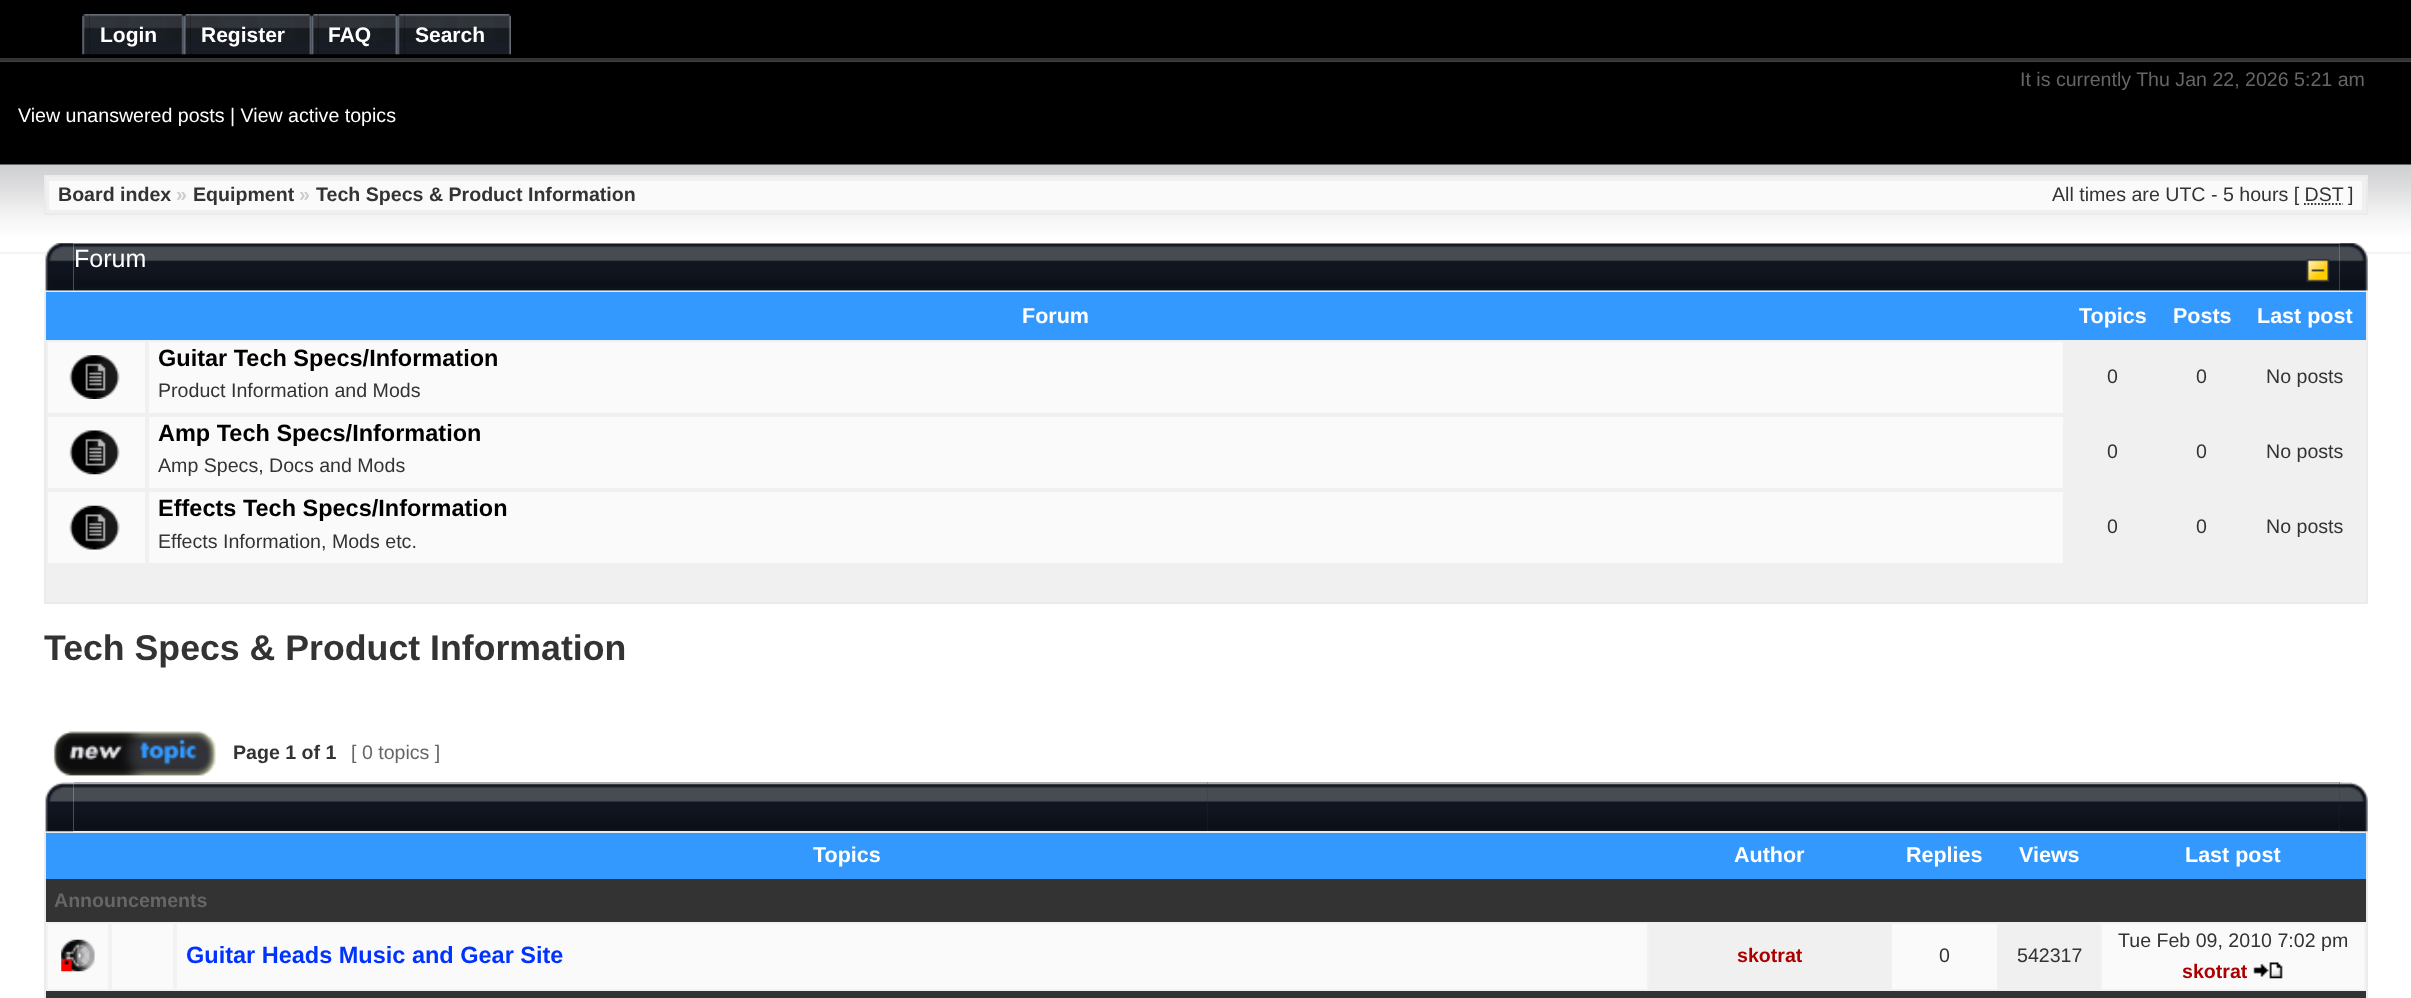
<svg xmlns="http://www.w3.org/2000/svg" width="2411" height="998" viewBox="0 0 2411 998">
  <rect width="100%" height="100%" fill="rgb(0,0,0)"/>
  <rect x="0" y="58" width="2411" height="3" fill="rgb(51,51,51)"/>
  <image x="82" y="14" width="8" height="41" href="pic1.png"/>
  <image x="89" y="14" width="95" height="41" href="pic2.png"/>
  <text x="100" y="42" font-family="Liberation Sans" font-size="21" font-weight="bold" fill="rgb(255,255,255)">Login</text>
  <image x="183" y="14" width="8" height="41" href="pic3.png"/>
  <image x="190" y="14" width="122" height="41" href="pic4.png"/>
  <text x="201" y="42" font-family="Liberation Sans" font-size="21" font-weight="bold" fill="rgb(255,255,255)">Register</text>
  <image x="311" y="14" width="8" height="41" href="pic5.png"/>
  <image x="318" y="14" width="80" height="41" href="pic6.png"/>
  <text x="328" y="42" font-family="Liberation Sans" font-size="21" font-weight="bold" fill="rgb(255,255,255)">FAQ</text>
  <image x="397" y="14" width="8" height="41" href="pic7.png"/>
  <image x="404" y="14" width="107" height="41" href="pic8.png"/>
  <text x="415" y="42" font-family="Liberation Sans" font-size="21" font-weight="bold" fill="rgb(255,255,255)">Search</text>
  <rect x="0" y="61" width="2411" height="937" fill="rgb(255,255,255)"/>
  <image x="0" y="61" width="2411" height="193" href="pic9.png"/>
  <text x="2020" y="86" font-family="Liberation Sans" font-size="19.6" fill="rgb(102,102,102)">It is currently Thu Jan 22, 2026 5:21 am</text>
  <text x="18" y="122" font-family="Liberation Sans" font-size="19.6" fill="rgb(255,255,255)">View unanswered posts | View active topics</text>
  <rect x="46" y="177" width="2320" height="32" fill="rgb(240,240,240)"/>
  <rect x="45" y="176" width="2322" height="38" fill="none" stroke="rgb(235,235,235)" stroke-width="2"/>
  <rect x="49" y="181" width="2313" height="29" fill="rgb(250,250,250)"/>
  <text x="58" y="201" font-family="Liberation Sans" font-size="19.6" font-weight="bold" fill="rgb(51,51,51)">Board index</text>
  <text x="176" y="201" font-family="Liberation Sans" font-size="19.6" font-weight="bold" fill="rgb(204,204,204)">»</text>
  <text x="193" y="201" font-family="Liberation Sans" font-size="19.6" font-weight="bold" fill="rgb(51,51,51)">Equipment</text>
  <text x="299" y="201" font-family="Liberation Sans" font-size="19.6" font-weight="bold" fill="rgb(204,204,204)">»</text>
  <text x="316" y="201" font-family="Liberation Sans" font-size="19.6" font-weight="bold" fill="rgb(51,51,51)">Tech Specs &amp; Product Information</text>
  <g font-family="Liberation Sans" font-size="19.6" fill="rgb(51,51,51)">
    <text x="2052" y="201">All times are UTC - 5 hours [ DST</text>
    <text x="2348" y="201">]</text>
  </g>
  <path d="M2304 204H2343" fill="none" stroke="rgb(51,51,51)" stroke-width="1.8" stroke-dasharray="1.75 1.75"/>
  <image x="45" y="243" width="29" height="48" href="pic10.png"/>
  <image x="2339" y="243" width="29" height="48" href="pic11.png"/>
  <image x="73" y="243" width="2267" height="48" href="pic12.png"/>
  <text x="74" y="267" font-family="Liberation Sans" font-size="25" fill="rgb(255,255,255)">Forum</text>
  <image x="2306" y="259" width="24" height="23" href="pic13.png"/>
  <rect x="46" y="340" width="2320" height="262" fill="rgb(240,240,240)"/>
  <rect x="45" y="292" width="2322" height="311" fill="none" stroke="rgb(235,235,235)" stroke-width="2"/>
  <rect x="46" y="292" width="2320" height="48" fill="rgb(51,153,255)"/>
  <g font-family="Liberation Sans" font-size="21.5" font-weight="bold" fill="rgb(255,255,255)">
    <text x="1022" y="323">Forum</text>
    <text x="2079" y="323">Topics</text>
    <text x="2173" y="323">Posts</text>
    <text x="2257" y="323">Last post</text>
  </g>
  <rect x="48" y="342" width="97" height="71" fill="rgb(250,250,250)"/>
  <image x="69" y="355" width="51" height="44" href="pic14.png"/>
  <rect x="149" y="342" width="1914" height="71" fill="rgb(250,250,250)"/>
  <text x="158" y="366" font-family="Liberation Sans" font-size="23.5" font-weight="bold" fill="rgb(0,0,0)">Guitar Tech Specs/Information</text>
  <g font-family="Liberation Sans" font-size="19.6" fill="rgb(51,51,51)">
    <text x="158" y="397">Product Information and Mods</text>
    <text x="2107" y="383">0</text>
    <text x="2196" y="383">0</text>
    <text x="2266" y="383">No posts</text>
  </g>
  <rect x="48" y="417" width="97" height="71" fill="rgb(250,250,250)"/>
  <image x="69" y="430" width="51" height="45" href="pic15.png"/>
  <rect x="149" y="417" width="1914" height="71" fill="rgb(250,250,250)"/>
  <text x="158" y="441" font-family="Liberation Sans" font-size="23.5" font-weight="bold" fill="rgb(0,0,0)">Amp Tech Specs/Information</text>
  <g font-family="Liberation Sans" font-size="19.6" fill="rgb(51,51,51)">
    <text x="158" y="472">Amp Specs, Docs and Mods</text>
    <text x="2107" y="458">0</text>
    <text x="2196" y="458">0</text>
    <text x="2266" y="458">No posts</text>
  </g>
  <rect x="48" y="492" width="97" height="71" fill="rgb(250,250,250)"/>
  <image x="69" y="505" width="51" height="45" href="pic16.png"/>
  <rect x="149" y="492" width="1914" height="71" fill="rgb(250,250,250)"/>
  <text x="158" y="516" font-family="Liberation Sans" font-size="23.5" font-weight="bold" fill="rgb(0,0,0)">Effects Tech Specs/Information</text>
  <g font-family="Liberation Sans" font-size="19.6" fill="rgb(51,51,51)">
    <text x="158" y="548">Effects Information, Mods etc.</text>
    <text x="2107" y="533">0</text>
    <text x="2196" y="533">0</text>
    <text x="2266" y="533">No posts</text>
  </g>
  <text x="44" y="660" font-family="Liberation Sans" font-size="35.7" font-weight="bold" fill="rgb(51,51,51)">Tech Specs &amp; Product Information</text>
  <image x="53" y="731" width="163" height="45" href="pic17.png"/>
  <text x="233" y="759" font-family="Liberation Sans" font-size="19.6" font-weight="bold" fill="rgb(51,51,51)">Page 1 of 1</text>
  <text x="351" y="759" font-family="Liberation Sans" font-size="19.6" fill="rgb(102,102,102)">[ 0 topics ]</text>
  <rect x="74" y="782" width="2266" height="49" fill="rgb(51,51,51)"/>
  <image x="73" y="782" width="1135" height="49" href="pic19.png"/>
  <rect x="1649" y="922" width="451" height="69" fill="rgb(240,240,240)"/>
  <rect x="45" y="832" width="2322" height="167" fill="none" stroke="rgb(235,235,235)" stroke-width="2"/>
  <image x="45" y="782" width="29" height="50" href="pic18.png"/>
  <image x="1207" y="782" width="1133" height="49" href="pic20.png"/>
  <image x="2339" y="782" width="29" height="50" href="pic21.png"/>
  <rect x="46" y="833" width="2320" height="46" fill="rgb(51,153,255)"/>
  <g font-family="Liberation Sans" font-size="21.5" font-weight="bold" fill="rgb(255,255,255)">
    <text x="813" y="862">Topics</text>
    <text x="1734" y="862">Author</text>
    <text x="1906" y="862">Replies</text>
    <text x="2019" y="862">Views</text>
    <text x="2185" y="862">Last post</text>
  </g>
  <rect x="46" y="879" width="2320" height="43" fill="rgb(51,51,51)"/>
  <text x="54" y="907" font-family="Liberation Sans" font-size="19.6" font-weight="bold" fill="rgb(102,102,102)">Announcements</text>
  <rect x="47" y="923" width="62" height="67" fill="rgb(250,250,250)" stroke="rgb(242,242,242)" stroke-width="2"/>
  <image x="61" y="939" width="34" height="33" href="pic22.png"/>
  <rect x="111" y="923" width="63" height="67" fill="rgb(250,250,250)" stroke="rgb(242,242,242)" stroke-width="2"/>
  <rect x="176" y="923" width="1472" height="67" fill="rgb(250,250,250)" stroke="rgb(242,242,242)" stroke-width="2"/>
  <text x="186" y="963" font-family="Liberation Sans" font-size="23.5" font-weight="bold" fill="rgb(0,51,255)">Guitar Heads Music and Gear Site</text>
  <text x="1737" y="962" font-family="Liberation Sans" font-size="19.6" font-weight="bold" fill="rgb(170,0,0)">skotrat</text>
  <rect x="1892" y="924" width="105" height="65" fill="rgb(250,250,250)"/>
  <g font-family="Liberation Sans" font-size="19.6" fill="rgb(51,51,51)">
    <text x="1939" y="962">0</text>
    <text x="2017" y="962">542317</text>
  </g>
  <rect x="2101" y="923" width="264" height="67" fill="rgb(250,250,250)" stroke="rgb(242,242,242)" stroke-width="2"/>
  <text x="2118" y="947" font-family="Liberation Sans" font-size="19.6" fill="rgb(51,51,51)">Tue Feb 09, 2010 7:02 pm</text>
  <text x="2182" y="978" font-family="Liberation Sans" font-size="19.6" font-weight="bold" fill="rgb(170,0,0)">skotrat</text>
  <image x="2253" y="962" width="30" height="17" href="pic23.png"/>
  <rect x="46" y="991" width="2320" height="7" fill="rgb(51,51,51)"/>
</svg>
